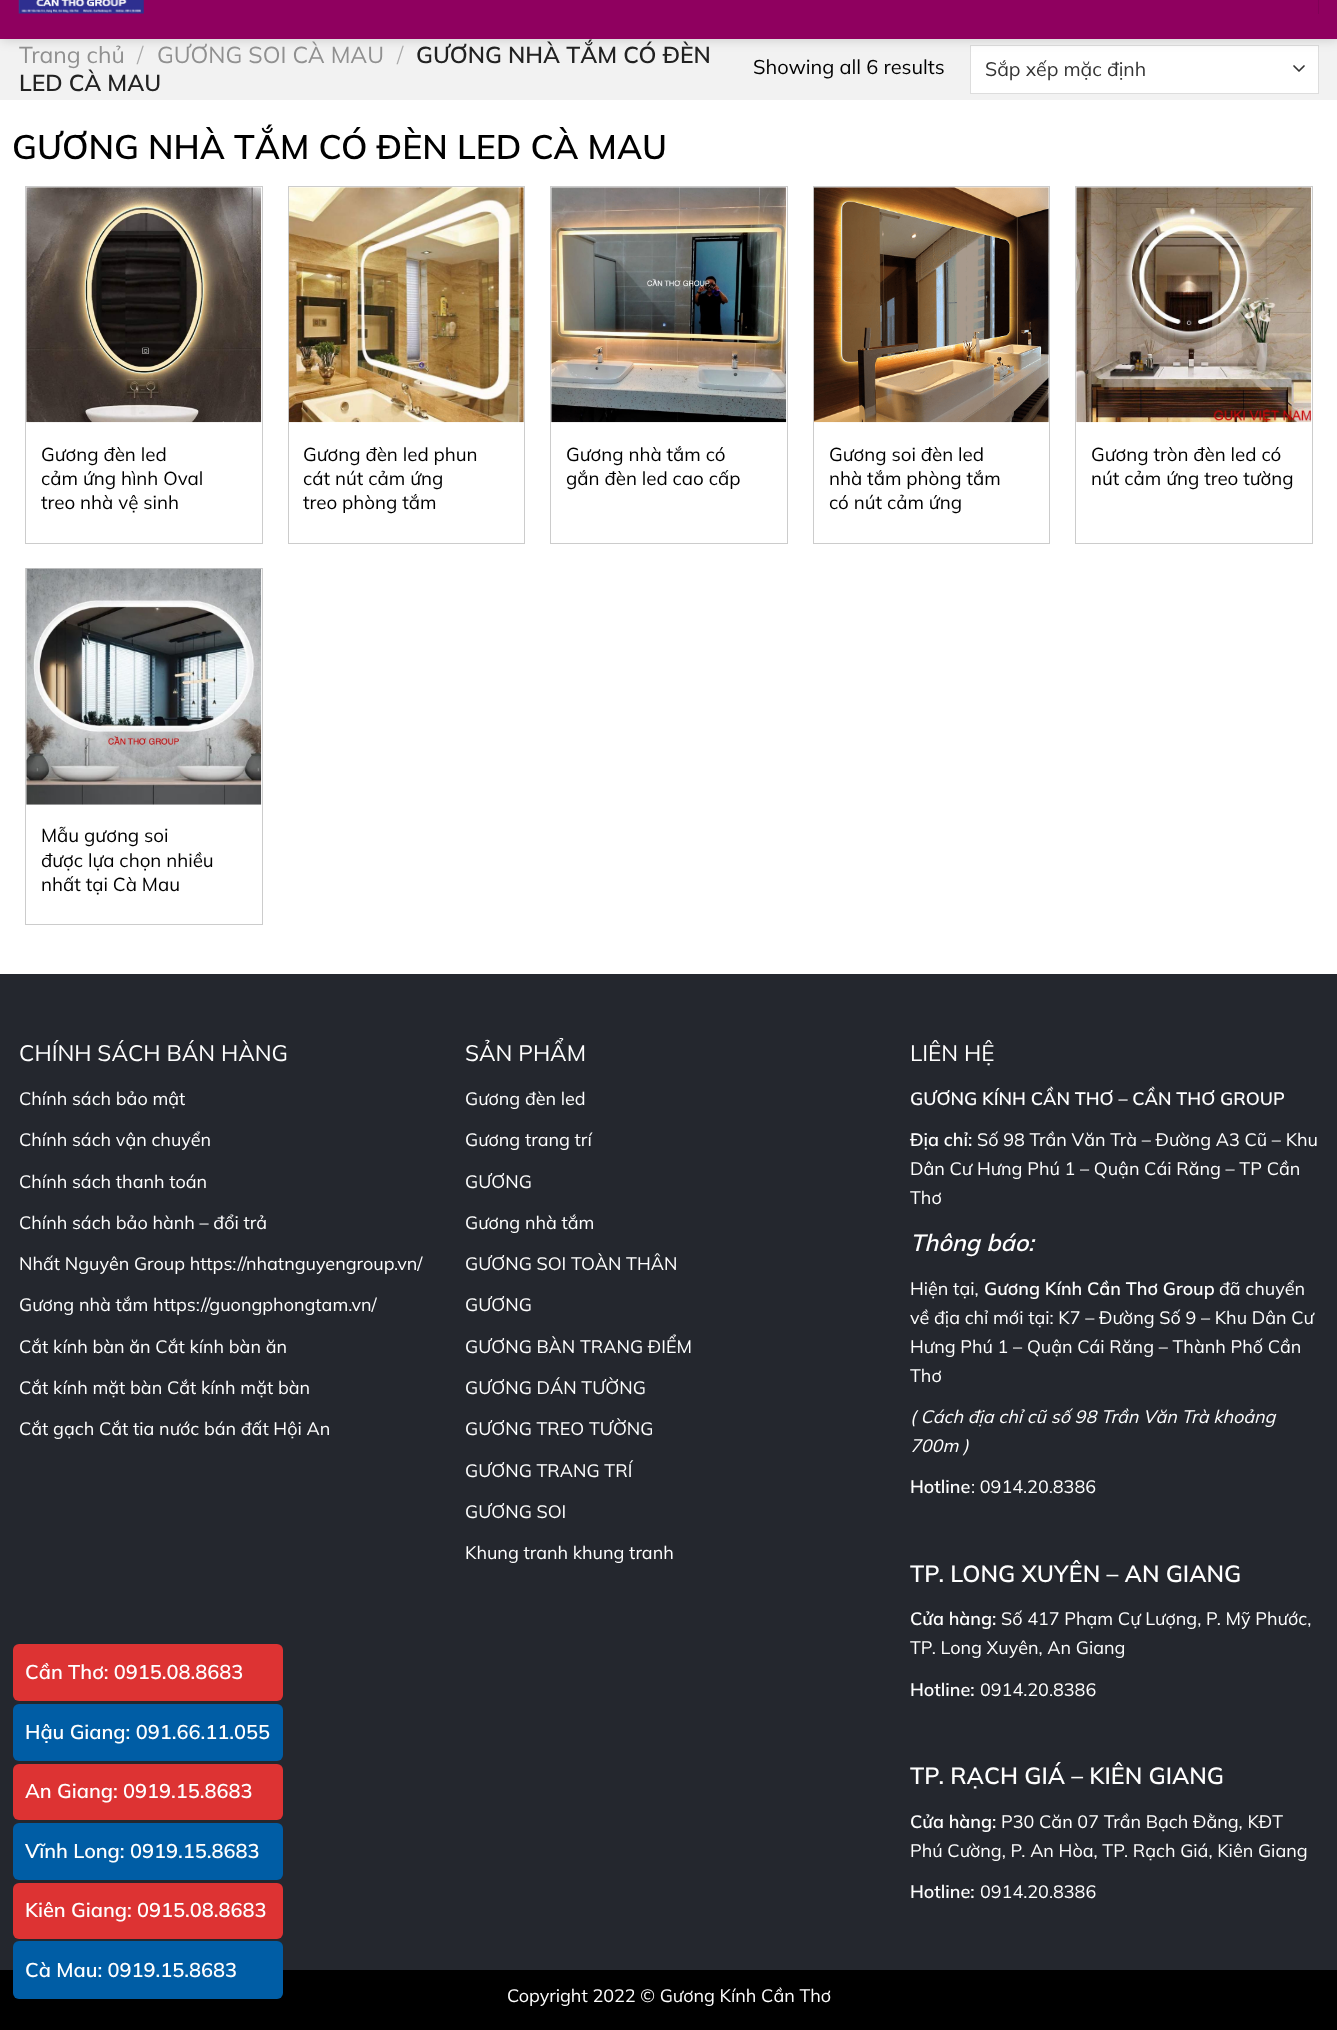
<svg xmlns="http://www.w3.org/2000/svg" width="1337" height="2030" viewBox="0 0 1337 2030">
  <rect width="100%" height="100%" fill="rgb(255,255,255)"/>
  <rect x="0" y="39" width="1337" height="61" fill="rgb(242,242,242)"/>
  <rect x="971" y="46" width="347" height="47" fill="rgb(255,255,255)"/>
  <path d="M1294 66L1299 71L1304 66" fill="none" stroke="rgb(51,51,51)" stroke-width="1.7" stroke-linecap="round" stroke-linejoin="round"/>
  <rect x="970.5" y="45.5" width="348" height="48" fill="none" stroke="rgb(221,221,221)"/>
  <rect x="1" y="-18" width="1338" height="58" fill="rgba(0,0,0,0.15)" filter="blur(6px)"/>
  <rect x="0" y="0" width="1337" height="39" fill="rgb(143,0,95)"/>
  <image x="18" y="0" width="126" height="14" href="pic1.png"/>
  <rect x="1318" y="0" width="1" height="14" fill="rgb(129,0,86)"/>
  <text x="19" y="63" font-family="Mulish" font-size="23" fill="rgb(144,144,144)">Trang chủ</text>
  <text x="137" y="63" font-family="Mulish" font-size="23" font-weight="300" fill="rgb(169,169,169)">/</text>
  <text x="157" y="63" font-family="Mulish" font-size="23" fill="rgb(144,144,144)">GƯƠNG SOI CÀ MAU</text>
  <text x="397" y="63" font-family="Mulish" font-size="23" font-weight="300" fill="rgb(169,169,169)">/</text>
  <g font-family="Mulish" font-size="23" font-weight="600" fill="rgb(34,34,34)">
    <text x="416" y="63">GƯƠNG NHÀ TẮM CÓ ĐÈN</text>
    <text x="19" y="91">LED CÀ MAU</text>
  </g>
  <text x="753" y="74" font-family="Mulish" font-size="20" fill="rgb(0,0,0)">Showing all 6 results</text>
  <text x="985" y="76" font-family="Mulish" font-size="19.5" fill="rgb(51,51,51)">Sắp xếp mặc định</text>
  <text x="12" y="159" font-family="Mulish" font-size="34" font-weight="600" fill="rgb(0,0,0)">GƯƠNG NHÀ TẮM CÓ ĐÈN LED CÀ MAU</text>
  <rect x="25.5" y="186.5" width="237" height="357" fill="none" stroke="rgb(204,204,204)"/>
  <image x="26" y="187" width="236" height="236" href="pic2.png"/>
  <g font-family="Mulish" font-size="18.75" fill="rgb(0,0,0)">
    <text>
      <tspan x="41" y="461">Gương đèn led</tspan>
      <tspan x="41" y="485">cảm ứng hình Oval</tspan>
      <tspan x="41" y="509">treo nhà vệ sinh</tspan>
    </text>
  </g>
  <rect x="288.5" y="186.5" width="236" height="357" fill="none" stroke="rgb(204,204,204)"/>
  <image x="288" y="187" width="236" height="236" href="pic3.png"/>
  <g font-family="Mulish" font-size="18.75" fill="rgb(0,0,0)">
    <text>
      <tspan x="303" y="461">Gương đèn led phun</tspan>
      <tspan x="303" y="485">cát nút cảm ứng</tspan>
      <tspan x="303" y="509">treo phòng tắm</tspan>
    </text>
  </g>
  <rect x="550.5" y="186.5" width="237" height="357" fill="none" stroke="rgb(204,204,204)"/>
  <image x="551" y="187" width="236" height="236" href="pic4.png"/>
  <g font-family="Mulish" font-size="18.75" fill="rgb(0,0,0)">
    <text>
      <tspan x="566" y="461">Gương nhà tắm có</tspan>
      <tspan x="566" y="485">gắn đèn led cao cấp</tspan>
    </text>
  </g>
  <rect x="813.5" y="186.5" width="236" height="357" fill="none" stroke="rgb(204,204,204)"/>
  <image x="813" y="187" width="236" height="236" href="pic5.png"/>
  <g font-family="Mulish" font-size="18.75" fill="rgb(0,0,0)">
    <text>
      <tspan x="829" y="461">Gương soi đèn led</tspan>
      <tspan x="829" y="485">nhà tắm phòng tắm</tspan>
      <tspan x="829" y="509">có nút cảm ứng</tspan>
    </text>
  </g>
  <rect x="1075.5" y="186.5" width="237" height="357" fill="none" stroke="rgb(204,204,204)"/>
  <image x="1076" y="187" width="236" height="236" href="pic6.png"/>
  <g font-family="Mulish" font-size="18.75" fill="rgb(0,0,0)">
    <text>
      <tspan x="1091" y="461">Gương tròn đèn led có</tspan>
      <tspan x="1091" y="485">nút cảm ứng treo tường</tspan>
    </text>
  </g>
  <rect x="25.5" y="568.5" width="237" height="356" fill="none" stroke="rgb(204,204,204)"/>
  <image x="26" y="568" width="236" height="237" href="pic7.png"/>
  <g font-family="Mulish" font-size="18.75" fill="rgb(0,0,0)">
    <text>
      <tspan x="41" y="842">Mẫu gương soi</tspan>
      <tspan x="41" y="867">được lựa chọn nhiều</tspan>
      <tspan x="41" y="891">nhất tại Cà Mau</tspan>
    </text>
  </g>
  <rect x="0" y="974" width="1337" height="996" fill="rgb(36,39,46)"/>
  <text x="19" y="1061" font-family="Mulish" font-size="22.5" fill="rgb(255,255,255)">CHÍNH SÁCH BÁN HÀNG</text>
  <g font-family="Mulish" font-size="18" fill="rgb(255,255,255)">
    <text x="19" y="1105">Chính sách bảo mật</text>
    <text x="19" y="1146">Chính sách vận chuyển</text>
    <text x="19" y="1188">Chính sách thanh toán</text>
    <text x="19" y="1229">Chính sách bảo hành – đổi trả</text>
    <text x="19" y="1270">Nhất Nguyên Group https://nhatnguyengroup.vn/</text>
    <text x="19" y="1311">Gương nhà tắm https://guongphongtam.vn/</text>
    <text x="19" y="1353">Cắt kính bàn ăn Cắt kính bàn ăn</text>
    <text x="19" y="1394">Cắt kính mặt bàn Cắt kính mặt bàn</text>
    <text x="19" y="1435">Cắt gạch Cắt tia nước bán đất Hội An</text>
  </g>
  <text x="465" y="1061" font-family="Mulish" font-size="22.5" fill="rgb(255,255,255)">SẢN PHẨM</text>
  <g font-family="Mulish" font-size="18" fill="rgb(255,255,255)">
    <text x="465" y="1105">Gương đèn led</text>
    <text x="465" y="1146">Gương trang trí</text>
    <text x="465" y="1188">GƯƠNG</text>
    <text x="465" y="1229">Gương nhà tắm</text>
    <text x="465" y="1270">GƯƠNG SOI TOÀN THÂN</text>
    <text x="465" y="1311">GƯƠNG</text>
    <text x="465" y="1353">GƯƠNG BÀN TRANG ĐIỂM</text>
    <text x="465" y="1394">GƯƠNG DÁN TƯỜNG</text>
    <text x="465" y="1435">GƯƠNG TREO TƯỜNG</text>
    <text x="465" y="1477">GƯƠNG TRANG TRÍ</text>
    <text x="465" y="1518">GƯƠNG SOI</text>
    <text x="465" y="1559">Khung tranh khung tranh</text>
  </g>
  <text x="910" y="1061" font-family="Mulish" font-size="22.5" fill="rgb(255,255,255)">LIÊN HỆ</text>
  <g font-family="Mulish" font-size="18" font-weight="600" fill="rgb(255,255,255)">
    <text x="910" y="1105">GƯƠNG KÍNH CẦN THƠ – CẦN THƠ GROUP</text>
    <text x="910" y="1146">Địa chỉ:</text>
  </g>
  <g font-family="Mulish" font-size="18" fill="rgb(255,255,255)">
    <text x="977" y="1146">Số 98 Trần Văn Trà – Đường A3 Cũ – Khu</text>
    <text>
      <tspan x="910" y="1175">Dân Cư Hưng Phú 1 – Quận Cái Răng – TP Cần</tspan>
      <tspan x="910" y="1204">Thơ</tspan>
    </text>
  </g>
  <text x="910" y="1251" font-family="Mulish" font-size="23.4" font-weight="600" font-style="italic" fill="rgb(255,255,255)">Thông báo:</text>
  <text x="910" y="1295" font-family="Mulish" font-size="18" fill="rgb(255,255,255)">Hiện tại,</text>
  <text x="984" y="1295" font-family="Mulish" font-size="18" font-weight="600" fill="rgb(255,255,255)">Gương Kính Cần Thơ Group</text>
  <g font-family="Mulish" font-size="18" fill="rgb(255,255,255)">
    <text x="1219" y="1295">đã chuyển</text>
    <text>
      <tspan x="910" y="1324">về địa chỉ mới tại: K7 – Đường Số 9 – Khu Dân Cư</tspan>
      <tspan x="910" y="1353">Hưng Phú 1 – Quận Cái Răng – Thành Phố Cần</tspan>
      <tspan x="910" y="1382">Thơ</tspan>
    </text>
  </g>
  <g font-family="Mulish" font-size="18" font-style="italic" fill="rgb(255,255,255)">
    <text>
      <tspan x="910" y="1423">( Cách địa chỉ cũ số 98 Trần Văn Trà khoảng</tspan>
      <tspan x="910" y="1452">700m )</tspan>
    </text>
  </g>
  <text x="910" y="1493" font-family="Mulish" font-size="18" font-weight="600" fill="rgb(255,255,255)">Hotline</text>
  <text x="971" y="1493" font-family="Mulish" font-size="18" fill="rgb(255,255,255)">: 0914.20.8386</text>
  <text x="910" y="1582" font-family="Mulish" font-size="23.4" font-weight="600" fill="rgb(255,255,255)">TP. LONG XUYÊN – AN GIANG</text>
  <text x="910" y="1625" font-family="Mulish" font-size="18" font-weight="600" fill="rgb(255,255,255)">Cửa hàng:</text>
  <g font-family="Mulish" font-size="18" fill="rgb(255,255,255)">
    <text x="1001" y="1625">Số 417 Phạm Cự Lượng, P. Mỹ Phước,</text>
    <text x="910" y="1654">TP. Long Xuyên, An Giang</text>
  </g>
  <text x="910" y="1696" font-family="Mulish" font-size="18" font-weight="600" fill="rgb(255,255,255)">Hotline:</text>
  <text x="980" y="1696" font-family="Mulish" font-size="18" fill="rgb(255,255,255)">0914.20.8386</text>
  <text x="910" y="1784" font-family="Mulish" font-size="23.4" font-weight="600" fill="rgb(255,255,255)">TP. RẠCH GIÁ – KIÊN GIANG</text>
  <text x="910" y="1828" font-family="Mulish" font-size="18" font-weight="600" fill="rgb(255,255,255)">Cửa hàng:</text>
  <g font-family="Mulish" font-size="18" fill="rgb(255,255,255)">
    <text x="1001" y="1828">P30 Căn 07 Trần Bạch Đằng, KĐT</text>
    <text x="910" y="1857">Phú Cường, P. An Hòa, TP. Rạch Giá, Kiên Giang</text>
  </g>
  <text x="910" y="1898" font-family="Mulish" font-size="18" font-weight="600" fill="rgb(255,255,255)">Hotline:</text>
  <text x="980" y="1898" font-family="Mulish" font-size="18" fill="rgb(255,255,255)">0914.20.8386</text>
  <rect x="0" y="1970" width="1337" height="60" fill="rgb(0,0,0)"/>
  <text x="507" y="2002" font-family="Mulish" font-size="18" fill="rgb(255,255,255)">Copyright 2022 © Gương Kính Cần Thơ</text>
  <rect x="13" y="1644" width="270" height="57" rx="6" fill="rgb(221,51,51)"/>
  <text x="25" y="1679" font-family="Mulish" font-size="20" font-weight="600" fill="rgb(255,255,255)">Cần Thơ: 0915.08.8683</text>
  <rect x="13" y="1704" width="270" height="57" rx="6" fill="rgb(0,93,165)"/>
  <text x="25" y="1739" font-family="Mulish" font-size="20" font-weight="600" fill="rgb(255,255,255)">Hậu Giang: 091.66.11.055</text>
  <rect x="13" y="1764" width="270" height="56" rx="6" fill="rgb(221,51,51)"/>
  <text x="25" y="1798" font-family="Mulish" font-size="20" font-weight="600" fill="rgb(255,255,255)">An Giang: 0919.15.8683</text>
  <rect x="13" y="1823" width="270" height="57" rx="6" fill="rgb(0,93,165)"/>
  <text x="25" y="1858" font-family="Mulish" font-size="20" font-weight="600" fill="rgb(255,255,255)">Vĩnh Long: 0919.15.8683</text>
  <rect x="13" y="1883" width="270" height="56" rx="6" fill="rgb(221,51,51)"/>
  <text x="25" y="1917" font-family="Mulish" font-size="20" font-weight="600" fill="rgb(255,255,255)">Kiên Giang: 0915.08.8683</text>
  <rect x="13" y="1941" width="270" height="58" rx="6" fill="rgb(0,93,165)"/>
  <text x="25" y="1977" font-family="Mulish" font-size="20" font-weight="600" fill="rgb(255,255,255)">Cà Mau: 0919.15.8683</text>
</svg>
